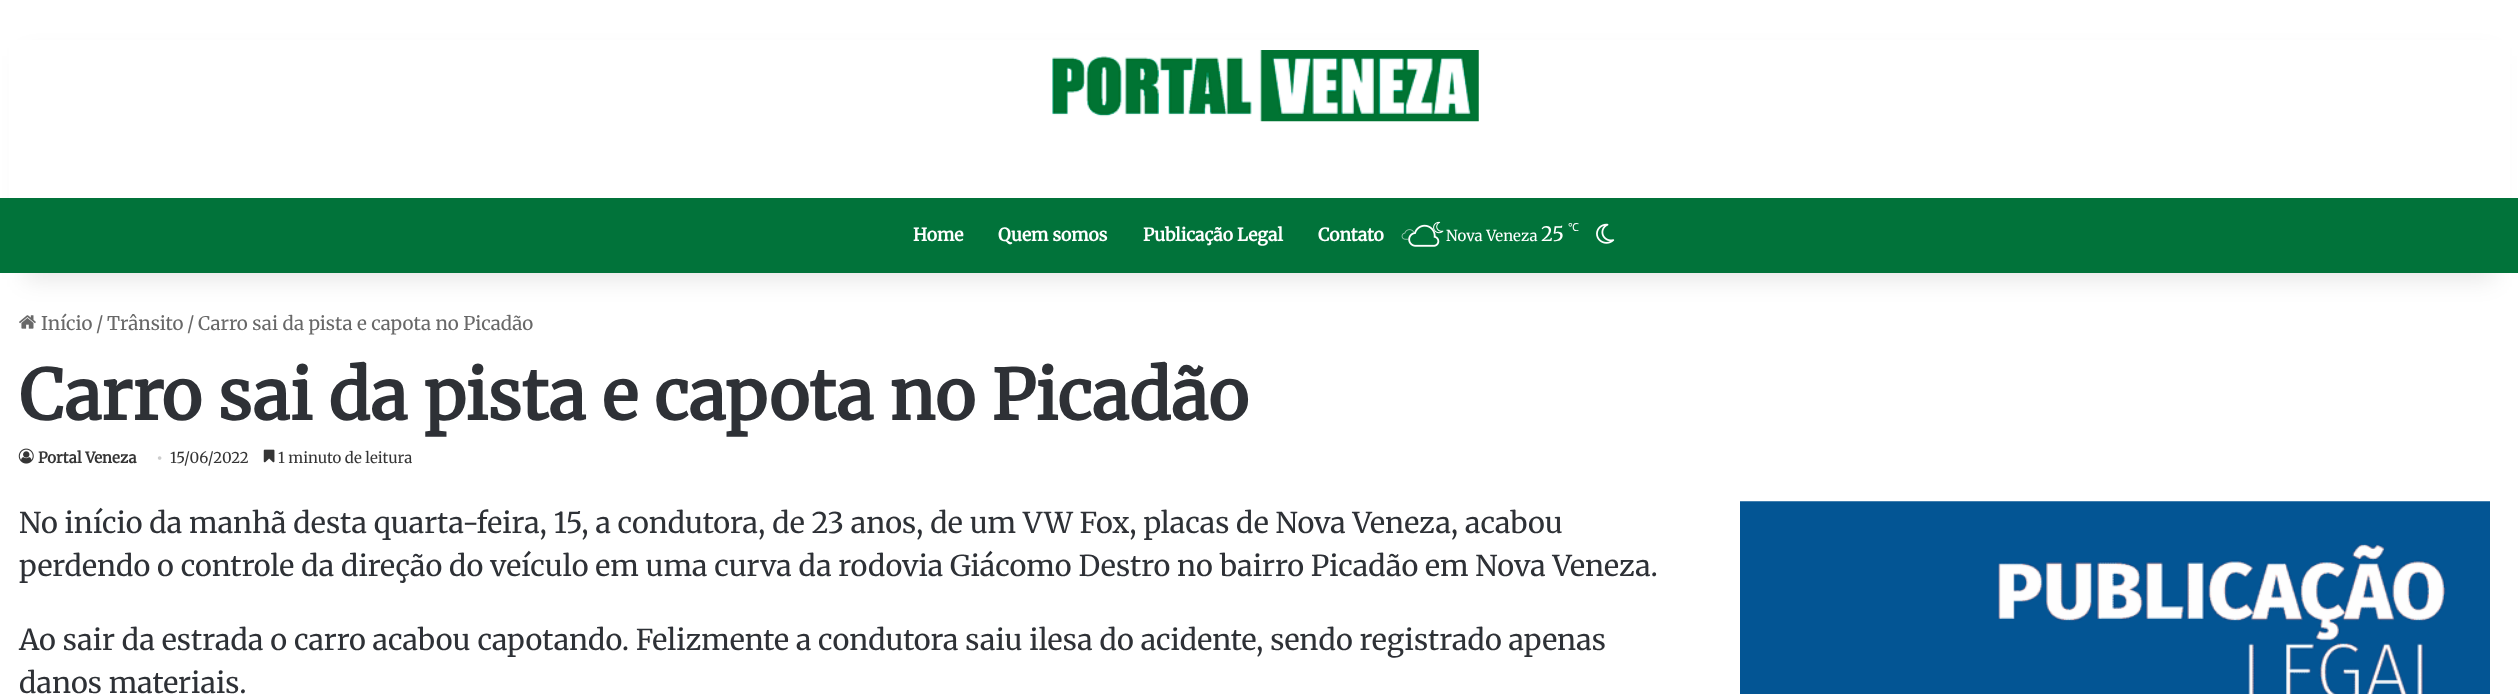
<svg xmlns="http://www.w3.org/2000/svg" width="2518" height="694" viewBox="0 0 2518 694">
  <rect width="100%" height="100%" fill="rgb(255,255,255)"/>
  <image x="19" y="315" width="17" height="14" href="pic7.png"/>
  <rect x="25" y="56" width="2469" height="223" fill="rgba(0,0,0,0.1)" filter="blur(12.5px)"/>
  <rect x="9" y="40" width="2501" height="158" fill="rgb(255,255,255)"/>
  <image x="1052" y="50" width="427" height="72" href="pic1.png"/>
  <rect x="0" y="198" width="2518" height="75" fill="rgb(1,115,58)"/>
  <g font-family="Merriweather" font-size="17.5" font-weight="bold" fill="rgb(255,255,255)">
    <text x="913" y="241">Home</text>
    <text x="998" y="241">Quem somos</text>
    <text x="1143" y="241">Publicação Legal</text>
    <text x="1318" y="241">Contato</text>
  </g>
  <image x="1433" y="221" width="11" height="13" href="pic2.png"/>
  <image x="1401" y="229" width="14" height="11" href="pic5.png"/>
  <image x="1408" y="228" width="27" height="12" href="pic4.png"/>
  <image x="1408" y="224" width="32" height="23" href="pic3.png"/>
  <text x="1446" y="241" font-family="Merriweather" font-size="15" font-weight="300" fill="rgb(255,255,255)">Nova Veneza</text>
  <text x="1541" y="241" font-family="Merriweather" font-size="20" font-weight="300" fill="rgb(255,255,255)">25</text>
  <text x="1568" y="231" font-family="Noto Sans" font-size="11" fill="rgb(255,255,255)">℃</text>
  <image x="1596" y="223" width="19" height="21" href="pic6.png"/>
  <g font-family="Merriweather" font-size="18.75" font-weight="300" fill="rgb(104,104,104)">
    <text x="41" y="330">Início</text>
    <text x="96" y="330">/</text>
    <text x="107" y="330">Trânsito</text>
    <text x="187" y="330">/</text>
    <text x="198" y="330">Carro sai da pista e capota no Picadão</text>
  </g>
  <text x="19" y="420" font-family="Merriweather" font-size="68.75" font-weight="bold" fill="rgb(46,49,54)">Carro sai da pista e capota no Picadão</text>
  <image x="18" y="448" width="16" height="16" href="pic8.png"/>
  <text x="38" y="463" font-family="Merriweather" font-size="15" font-weight="bold" fill="rgb(53,53,53)">Portal Veneza</text>
  <text x="157" y="463" font-family="Liberation Serif" font-size="15" fill="rgb(205,205,205)">•</text>
  <text x="170" y="463" font-family="Merriweather" font-size="15" font-weight="300" fill="rgb(53,53,53)">15/06/2022</text>
  <image x="263" y="449" width="12" height="14" href="pic9.png"/>
  <text x="278" y="463" font-family="Merriweather" font-size="15" font-weight="300" fill="rgb(53,53,53)">1 minuto de leitura</text>
  <g font-family="Merriweather" font-size="28.75" font-weight="300" fill="rgb(46,49,54)">
    <text>
      <tspan x="19" y="533">No início da manhã desta quarta-feira, 15, a condutora, de 23 anos, de um VW Fox, placas de Nova Veneza, acabou</tspan>
      <tspan x="19" y="576">perdendo o controle da direção do veículo em uma curva da rodovia Giácomo Destro no bairro Picadão em Nova Veneza.</tspan>
    </text>
    <text>
      <tspan x="19" y="650">Ao sair da estrada o carro acabou capotando. Felizmente a condutora saiu ilesa do acidente, sendo registrado apenas</tspan>
      <tspan x="19" y="693">danos materiais.</tspan>
    </text>
  </g>
  <image x="1740" y="501" width="750" height="193" href="pic10.png"/>
</svg>
